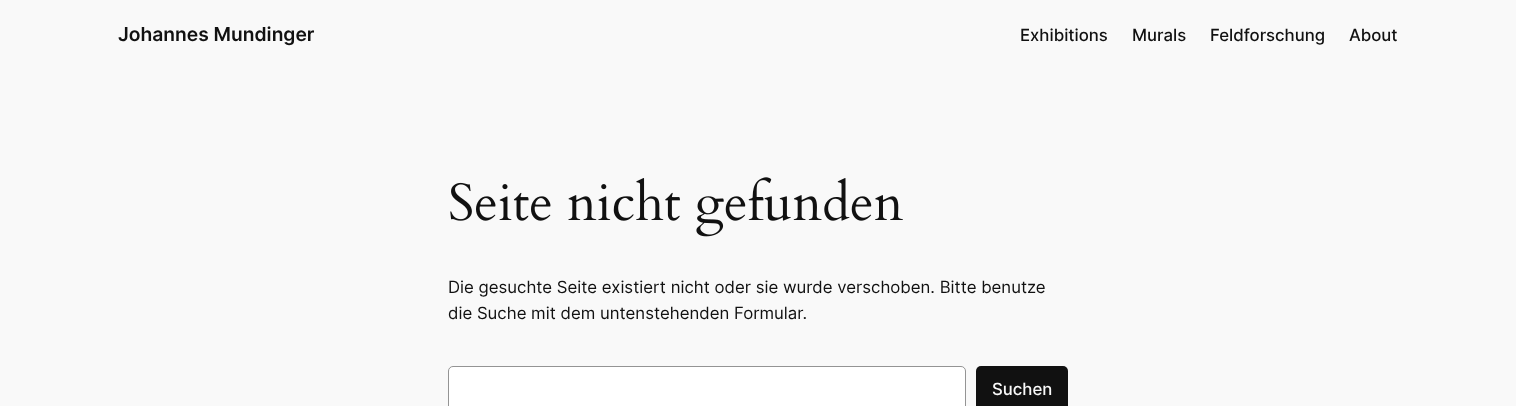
<svg xmlns="http://www.w3.org/2000/svg" width="1516" height="406" viewBox="0 0 1516 406">
  <rect width="100%" height="100%" fill="rgb(249,249,249)"/>
  <text x="118" y="41" font-family="Inter" font-size="19.25" font-weight="600" fill="rgb(17,17,17)">Johannes Mundinger</text>
  <g font-family="Inter" font-size="16.8" font-weight="500" fill="rgb(17,17,17)">
    <text x="1020" y="41">Exhibitions</text>
    <text x="1132" y="41">Murals</text>
    <text x="1210" y="41">Feldforschung</text>
    <text x="1349" y="41">About</text>
  </g>
  <image x="450" y="177" width="453" height="60" href="pic1.png"/>
  <g font-family="Inter" font-size="16.8" fill="rgb(17,17,17)">
    <text>
      <tspan x="448" y="293">Die gesuchte Seite existiert nicht oder sie wurde verschoben. Bitte benutze</tspan>
      <tspan x="448" y="319">die Suche mit dem untenstehenden Formular.</tspan>
    </text>
  </g>
  <rect x="448.5" y="366.5" width="517" height="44" rx="4.5" fill="rgb(255,255,255)" stroke="rgb(148,148,148)"/>
  <rect x="976" y="366" width="92" height="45" rx="5" fill="rgb(17,17,17)"/>
  <text x="992" y="395" font-family="Inter" font-size="16.8" font-weight="500" fill="rgb(249,249,249)">Suchen</text>
</svg>
